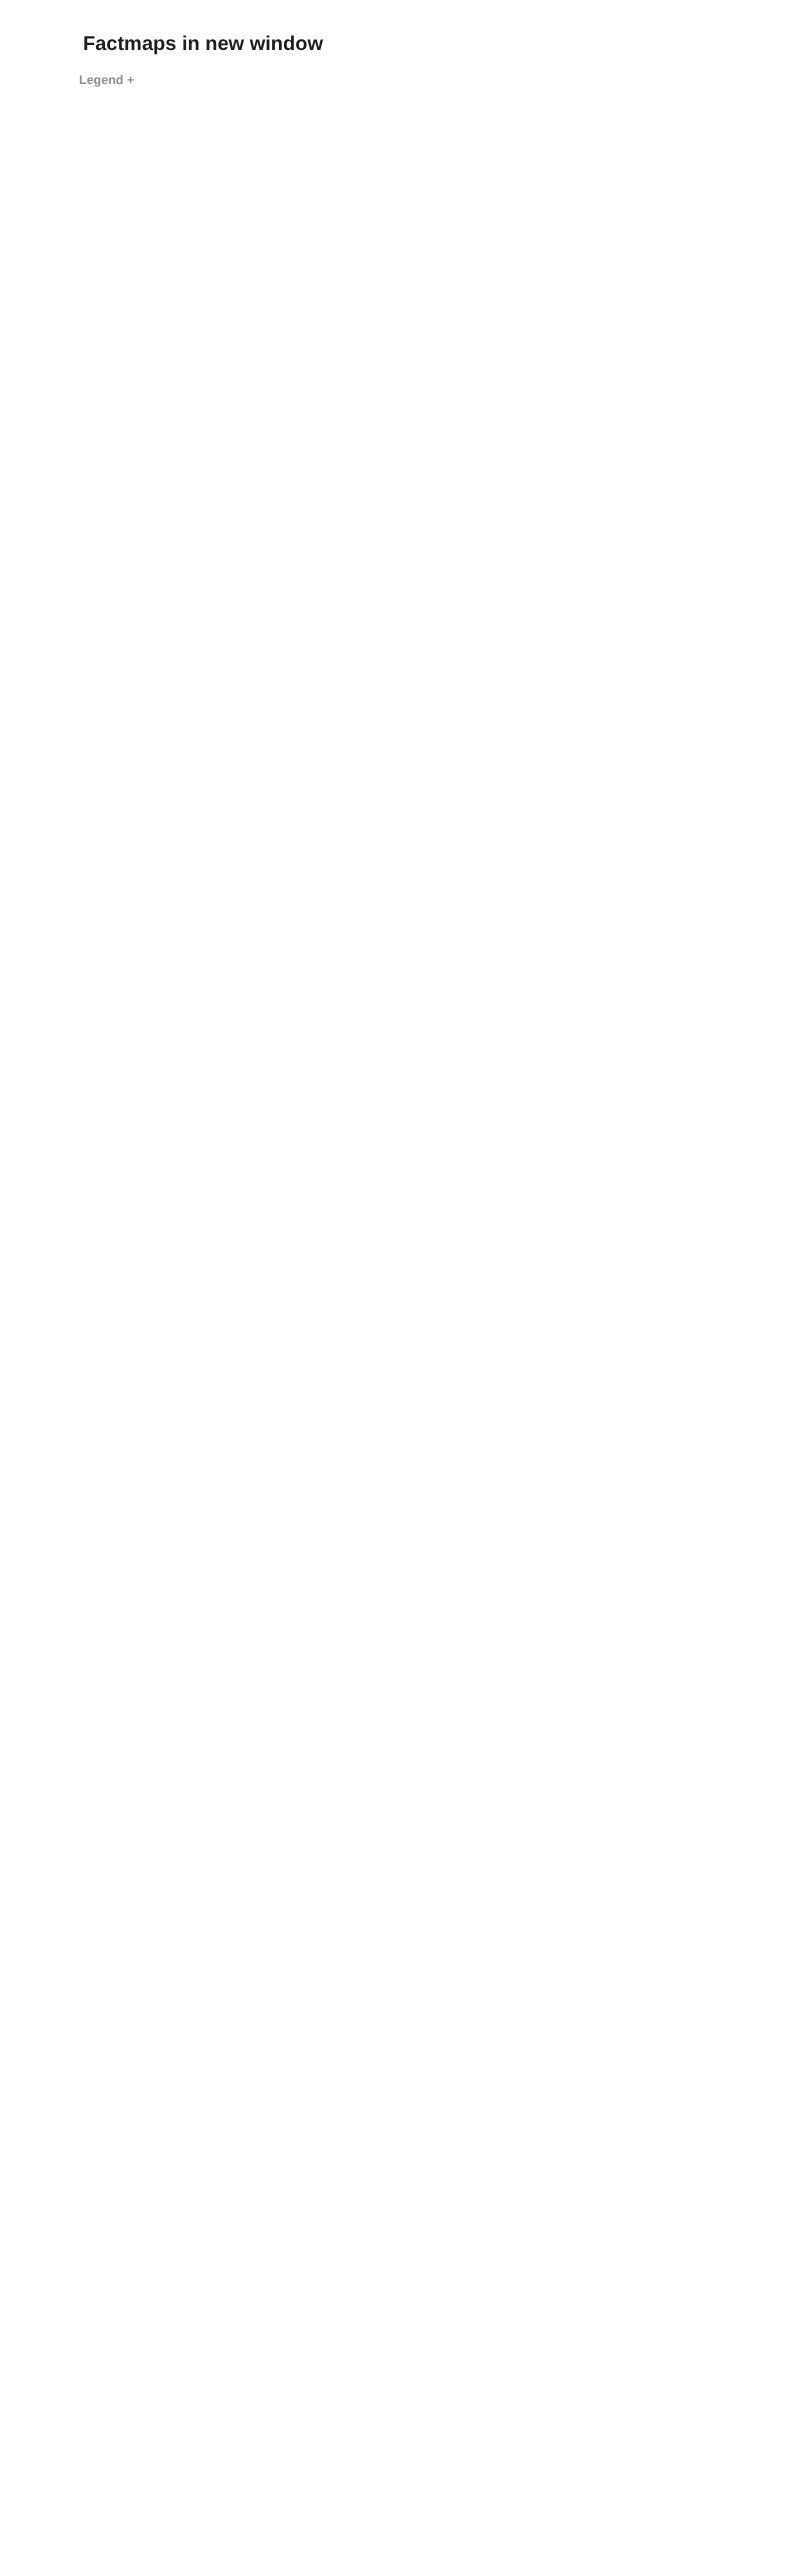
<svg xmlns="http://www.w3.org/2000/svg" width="786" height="2570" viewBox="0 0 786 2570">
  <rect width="100%" height="100%" fill="rgb(255,255,255)"/>
  <text x="83" y="50" font-family="Liberation Sans" font-size="20" font-weight="bold" fill="rgb(29,29,27)">Factmaps in new window</text>
  <text x="79" y="84" font-family="Liberation Sans" font-size="12.5" font-weight="bold" fill="rgb(143,143,143)">Legend +</text>
</svg>
